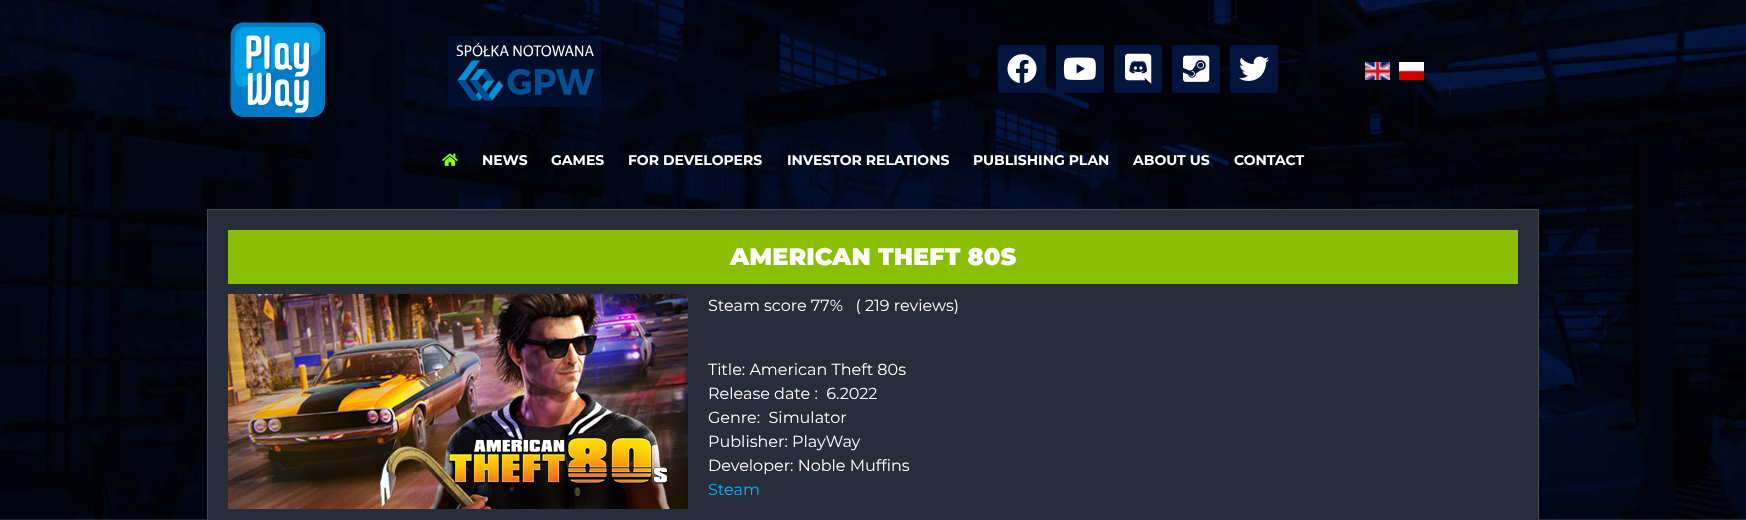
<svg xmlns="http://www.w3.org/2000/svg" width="1746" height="520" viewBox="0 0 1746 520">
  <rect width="100%" height="100%" fill="rgb(255,255,255)"/>
  <image x="0" y="0" width="1746" height="520" href="pic1.png"/>
  <image x="230" y="22" width="96" height="96" href="pic2.png"/>
  <image x="448" y="36" width="153" height="71" href="pic3.png"/>
  <rect x="998" y="45" width="48" height="48" rx="3" fill="rgb(2,21,63)"/>
  <image x="1007" y="54" width="30" height="29" href="pic4.png"/>
  <rect x="1056" y="45" width="48" height="48" rx="3" fill="rgb(2,21,63)"/>
  <image x="1063" y="57" width="33" height="23" href="pic5.png"/>
  <rect x="1114" y="45" width="48" height="48" rx="3" fill="rgb(2,21,63)"/>
  <image x="1125" y="53" width="27" height="31" href="pic6.png"/>
  <rect x="1172" y="45" width="48" height="48" rx="3" fill="rgb(2,21,63)"/>
  <image x="1183" y="55" width="27" height="27" href="pic7.png"/>
  <rect x="1230" y="45" width="48" height="48" rx="3" fill="rgb(2,21,63)"/>
  <image x="1239" y="56" width="30" height="25" href="pic8.png"/>
  <image x="1365" y="62" width="25" height="18" href="pic9.png"/>
  <image x="1399" y="62" width="25" height="18" href="pic10.png"/>
  <image x="442" y="153" width="16" height="13" href="pic11.png"/>
  <g font-family="Montserrat" font-size="14" font-weight="bold" fill="rgb(255,255,255)">
    <text x="482" y="165">NEWS</text>
    <text x="551" y="165">GAMES</text>
    <text x="628" y="165">FOR DEVELOPERS</text>
    <text x="787" y="165">INVESTOR RELATIONS</text>
    <text x="973" y="165">PUBLISHING PLAN</text>
    <text x="1133" y="165">ABOUT US</text>
    <text x="1234" y="165">CONTACT</text>
  </g>
  <rect x="207.5" y="209.5" width="1331" height="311" fill="rgb(40,46,57)" stroke="rgb(72,72,72)"/>
  <rect x="228" y="230" width="1290" height="54" fill="rgb(136,192,0)"/>
  <text x="730" y="265" font-family="Montserrat" font-size="24" font-weight="900" fill="rgb(255,255,255)">AMERICAN THEFT 80S</text>
  <image x="228" y="294" width="460" height="215" href="pic12.png"/>
  <g font-family="Montserrat" font-size="16" fill="rgb(255,255,255)">
    <text x="708" y="311" xml:space="preserve">Steam score 77%   ( 219 reviews)</text>
    <text xml:space="preserve"><tspan x="708" y="375">Title: American Theft 80s</tspan><tspan x="708" y="399">Release date :  6.2022</tspan><tspan x="708" y="423">Genre:  Simulator</tspan><tspan x="708" y="447">Publisher: PlayWay</tspan><tspan x="708" y="471">Developer: Noble Muffins</tspan></text>
  </g>
  <text x="708" y="495" font-family="Montserrat" font-size="16" fill="rgb(0,182,255)">Steam</text>
</svg>
